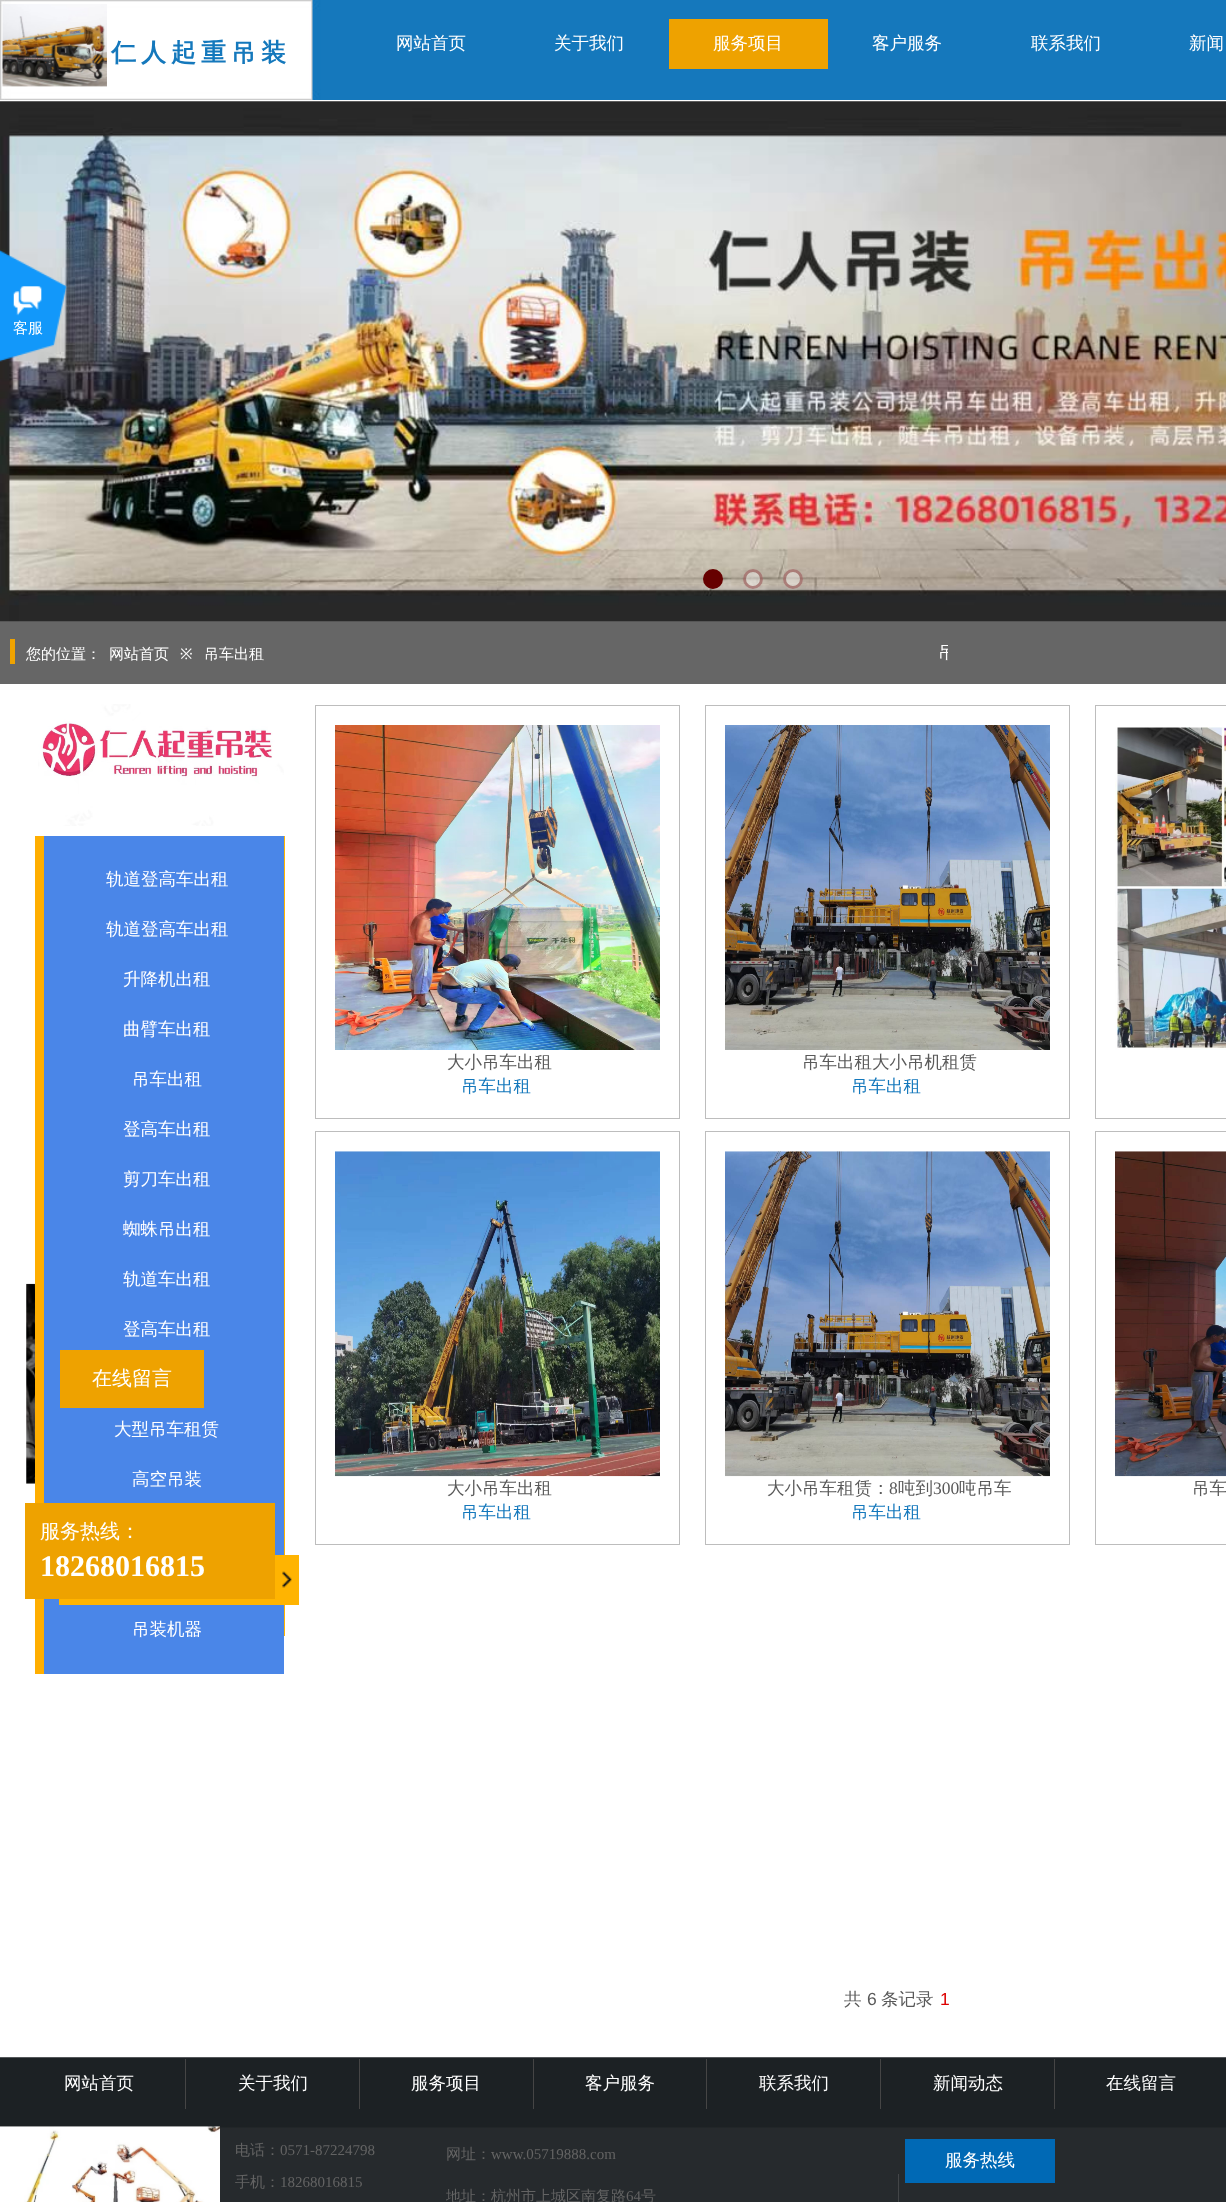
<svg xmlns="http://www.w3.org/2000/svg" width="1226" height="2202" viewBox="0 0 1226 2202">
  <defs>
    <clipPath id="clip1"><rect x="938" y="621" width="10" height="63"/></clipPath>
  </defs>
  <rect width="100%" height="100%" fill="rgb(255,255,255)"/>
  <image x="0" y="0" width="1226" height="100" href="pic1.png"/>
  <image x="2" y="4" width="105" height="83" href="pic2.png"/>
  <text x="111" y="61" font-family="WenQuanYi Zen Hei" font-size="25" font-weight="bold" letter-spacing="5" fill="rgb(20,120,188)">仁人起重吊装</text>
  <g font-family="WenQuanYi Zen Hei" font-size="17.5" font-weight="500" fill="rgb(255,255,255)">
    <text x="396" y="49">网站首页</text>
    <text x="554" y="49">关于我们</text>
  </g>
  <rect x="669" y="19" width="159" height="50" fill="rgb(238,162,0)"/>
  <g font-family="WenQuanYi Zen Hei" font-size="17.5" font-weight="500" fill="rgb(255,255,255)">
    <text x="713" y="49">服务项目</text>
    <text x="872" y="49">客户服务</text>
    <text x="1031" y="49">联系我们</text>
    <text x="1189" y="49">新闻</text>
  </g>
  <rect x="0" y="621" width="1226" height="63" fill="rgb(102,102,102)"/>
  <image x="0" y="101" width="1226" height="521" href="pic3.png"/>
  <circle cx="713" cy="579" r="8.5" fill="rgb(102,0,0)" stroke="rgb(102,0,0)" stroke-width="3"/>
  <circle cx="753" cy="579" r="10" fill="rgba(255,255,255,0.4)"/>
  <circle cx="753" cy="579" r="8.5" fill="none" stroke="rgba(102,0,0,0.4)" stroke-width="3"/>
  <circle cx="793" cy="579" r="10" fill="rgba(255,255,255,0.4)"/>
  <circle cx="793" cy="579" r="8.5" fill="none" stroke="rgba(102,0,0,0.4)" stroke-width="3"/>
  <rect x="10" y="639" width="5" height="25" fill="rgb(238,162,0)"/>
  <g font-family="WenQuanYi Zen Hei" font-size="15" font-weight="500" fill="rgb(255,255,255)">
    <text x="26" y="659">您的位置：</text>
    <text x="109" y="659">网站首页</text>
  </g>
  <text x="180" y="659" font-family="Noto Sans" font-size="15" fill="rgb(255,255,255)">※</text>
  <text x="204" y="659" font-family="WenQuanYi Zen Hei" font-size="15" font-weight="500" fill="rgb(255,255,255)">吊车出租</text>
  <g clip-path="url(#clip1)">
    <text x="938" y="658" font-family="WenQuanYi Zen Hei" font-size="17.5" font-weight="500" fill="rgb(255,255,255)">吊</text>
  </g>
  <image x="38" y="704" width="246" height="122" href="pic4.png"/>
  <image x="26" y="1283" width="9" height="201" href="pic5.png"/>
  <rect x="284" y="836" width="1" height="800" fill="rgb(255,180,1)"/>
  <rect x="44" y="836" width="240" height="838" fill="rgb(74,134,232)"/>
  <rect x="35" y="836" width="9" height="838" fill="rgb(255,174,0)"/>
  <g font-family="WenQuanYi Zen Hei" font-size="17.5" font-weight="500" fill="rgb(255,255,255)">
    <text x="106" y="885">轨道登高车出租</text>
    <text x="106" y="935">轨道登高车出租</text>
    <text x="123" y="985">升降机出租</text>
    <text x="123" y="1035">曲臂车出租</text>
    <text x="132" y="1085">吊车出租</text>
    <text x="123" y="1135">登高车出租</text>
    <text x="123" y="1185">剪刀车出租</text>
    <text x="123" y="1235">蜘蛛吊出租</text>
    <text x="123" y="1285">轨道车出租</text>
    <text x="123" y="1335">登高车出租</text>
    <text x="114" y="1435">大型吊车租赁</text>
    <text x="132" y="1485">高空吊装</text>
  </g>
  <rect x="59" y="1555" width="240" height="50" fill="rgb(255,180,1)"/>
  <image x="282" y="1571" width="10" height="17" href="pic6.png"/>
  <text x="132" y="1635" font-family="WenQuanYi Zen Hei" font-size="17.5" font-weight="500" fill="rgb(255,255,255)">吊装机器</text>
  <rect x="315.5" y="705.5" width="364" height="413" fill="none" stroke="rgb(189,189,189)"/>
  <image x="335" y="725" width="325" height="325" href="pic7.png"/>
  <text x="447" y="1068" font-family="WenQuanYi Zen Hei" font-size="17.5" font-weight="500" fill="rgb(90,90,90)">大小吊车出租</text>
  <text x="461" y="1092" font-family="WenQuanYi Zen Hei" font-size="17.5" font-weight="500" fill="rgb(20,120,188)">吊车出租</text>
  <rect x="705.5" y="705.5" width="364" height="413" fill="none" stroke="rgb(189,189,189)"/>
  <image x="725" y="725" width="325" height="325" href="pic8.png"/>
  <text x="802" y="1068" font-family="WenQuanYi Zen Hei" font-size="17.5" font-weight="500" fill="rgb(90,90,90)">吊车出租大小吊机租赁</text>
  <text x="851" y="1092" font-family="WenQuanYi Zen Hei" font-size="17.5" font-weight="500" fill="rgb(20,120,188)">吊车出租</text>
  <rect x="1095.5" y="705.5" width="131" height="413" fill="none" stroke="rgb(189,189,189)"/>
  <image x="1115" y="727" width="111" height="323" href="pic9.png"/>
  <rect x="315.5" y="1131.5" width="364" height="413" fill="none" stroke="rgb(189,189,189)"/>
  <image x="335" y="1151" width="325" height="326" href="pic10.png"/>
  <text x="447" y="1494" font-family="WenQuanYi Zen Hei" font-size="17.5" font-weight="500" fill="rgb(90,90,90)">大小吊车出租</text>
  <text x="461" y="1518" font-family="WenQuanYi Zen Hei" font-size="17.5" font-weight="500" fill="rgb(20,120,188)">吊车出租</text>
  <rect x="705.5" y="1131.5" width="364" height="413" fill="none" stroke="rgb(189,189,189)"/>
  <image x="725" y="1151" width="325" height="326" href="pic11.png"/>
  <text x="767" y="1494" font-family="WenQuanYi Zen Hei" font-size="17.5" font-weight="500" fill="rgb(90,90,90)">大小吊车租赁：</text>
  <text x="889" y="1494" font-family="Liberation Serif" font-size="17.5" fill="rgb(90,90,90)">8</text>
  <text x="898" y="1494" font-family="WenQuanYi Zen Hei" font-size="17.5" font-weight="500" fill="rgb(90,90,90)">吨到</text>
  <text x="933" y="1494" font-family="Liberation Serif" font-size="17.5" fill="rgb(90,90,90)">300</text>
  <text x="959" y="1494" font-family="WenQuanYi Zen Hei" font-size="17.5" font-weight="500" fill="rgb(90,90,90)">吨吊车</text>
  <text x="851" y="1518" font-family="WenQuanYi Zen Hei" font-size="17.5" font-weight="500" fill="rgb(20,120,188)">吊车出租</text>
  <rect x="1095.5" y="1131.5" width="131" height="413" fill="none" stroke="rgb(189,189,189)"/>
  <image x="1115" y="1151" width="111" height="326" href="pic12.png"/>
  <g font-family="WenQuanYi Zen Hei" font-size="17.5" font-weight="500" fill="rgb(90,90,90)">
    <text x="1192" y="1494">吊车</text>
    <text x="844" y="2005">共</text>
  </g>
  <text x="867" y="2005" font-family="Liberation Sans" font-size="17.5" fill="rgb(90,90,90)">6</text>
  <text x="881" y="2005" font-family="WenQuanYi Zen Hei" font-size="17.5" font-weight="500" fill="rgb(90,90,90)">条记录</text>
  <text x="940" y="2005" font-family="Liberation Sans" font-size="17.5" fill="rgb(221,0,0)">1</text>
  <rect x="60" y="1350" width="144" height="58" fill="rgb(238,162,0)"/>
  <text x="92" y="1385" font-family="WenQuanYi Zen Hei" font-size="20" font-weight="500" fill="rgb(255,255,255)">在线留言</text>
  <rect x="25" y="1503" width="250" height="96" fill="rgb(238,162,0)"/>
  <text x="40" y="1538" font-family="WenQuanYi Zen Hei" font-size="20" font-weight="500" fill="rgb(255,255,255)">服务热线：</text>
  <text x="40" y="1576" font-family="Liberation Serif" font-size="30" font-weight="bold" fill="rgb(255,255,255)">18268016815</text>
  <image x="0" y="2058" width="1226" height="144" href="pic13.png"/>
  <rect x="0" y="2057" width="1226" height="1" fill="rgb(85,88,91)"/>
  <rect x="185" y="2059" width="1" height="50" fill="rgb(69,69,69)"/>
  <text x="64" y="2089" font-family="WenQuanYi Zen Hei" font-size="17.5" font-weight="500" fill="rgb(255,255,255)">网站首页</text>
  <rect x="359" y="2059" width="1" height="50" fill="rgb(69,69,69)"/>
  <text x="238" y="2089" font-family="WenQuanYi Zen Hei" font-size="17.5" font-weight="500" fill="rgb(255,255,255)">关于我们</text>
  <rect x="533" y="2059" width="1" height="50" fill="rgb(69,69,69)"/>
  <text x="411" y="2089" font-family="WenQuanYi Zen Hei" font-size="17.5" font-weight="500" fill="rgb(255,255,255)">服务项目</text>
  <rect x="706" y="2059" width="1" height="50" fill="rgb(69,69,69)"/>
  <text x="585" y="2089" font-family="WenQuanYi Zen Hei" font-size="17.5" font-weight="500" fill="rgb(255,255,255)">客户服务</text>
  <rect x="880" y="2059" width="1" height="50" fill="rgb(69,69,69)"/>
  <text x="759" y="2089" font-family="WenQuanYi Zen Hei" font-size="17.5" font-weight="500" fill="rgb(255,255,255)">联系我们</text>
  <rect x="1054" y="2059" width="1" height="50" fill="rgb(69,69,69)"/>
  <g font-family="WenQuanYi Zen Hei" font-size="17.5" font-weight="500" fill="rgb(255,255,255)">
    <text x="933" y="2089">新闻动态</text>
    <text x="1106" y="2089">在线留言</text>
  </g>
  <image x="0" y="2126" width="220" height="76" href="pic14.png"/>
  <text x="235" y="2155" font-family="WenQuanYi Zen Hei" font-size="15" font-weight="500" fill="rgb(99,99,99)">电话：</text>
  <text x="280" y="2155" font-family="Liberation Serif" font-size="15" fill="rgb(99,99,99)">0571-87224798</text>
  <text x="235" y="2187" font-family="WenQuanYi Zen Hei" font-size="15" font-weight="500" fill="rgb(99,99,99)">手机：</text>
  <text x="280" y="2187" font-family="Liberation Serif" font-size="15" fill="rgb(99,99,99)">18268016815</text>
  <text x="446" y="2159" font-family="WenQuanYi Zen Hei" font-size="15" font-weight="500" fill="rgb(99,99,99)">网址：</text>
  <text x="491" y="2159" font-family="Liberation Serif" font-size="15" fill="rgb(99,99,99)">www.05719888.com</text>
  <text x="446" y="2201" font-family="WenQuanYi Zen Hei" font-size="15" font-weight="500" fill="rgb(99,99,99)">地址：杭州市上城区南复路</text>
  <text x="626" y="2201" font-family="Liberation Serif" font-size="15" fill="rgb(99,99,99)">64</text>
  <text x="641" y="2201" font-family="WenQuanYi Zen Hei" font-size="15" font-weight="500" fill="rgb(99,99,99)">号</text>
  <rect x="905" y="2139" width="150" height="44" fill="rgb(0,105,181)"/>
  <text x="945" y="2166" font-family="WenQuanYi Zen Hei" font-size="17.5" font-weight="500" fill="rgb(255,255,255)">服务热线</text>
  <rect x="898" y="2174" width="1" height="28" fill="rgb(66,69,71)"/>
  <image x="0" y="250" width="67" height="112" href="pic15.png"/>
  <text x="13" y="333" font-family="WenQuanYi Zen Hei" font-size="15" font-weight="500" fill="rgb(255,255,255)">客服</text>
</svg>
